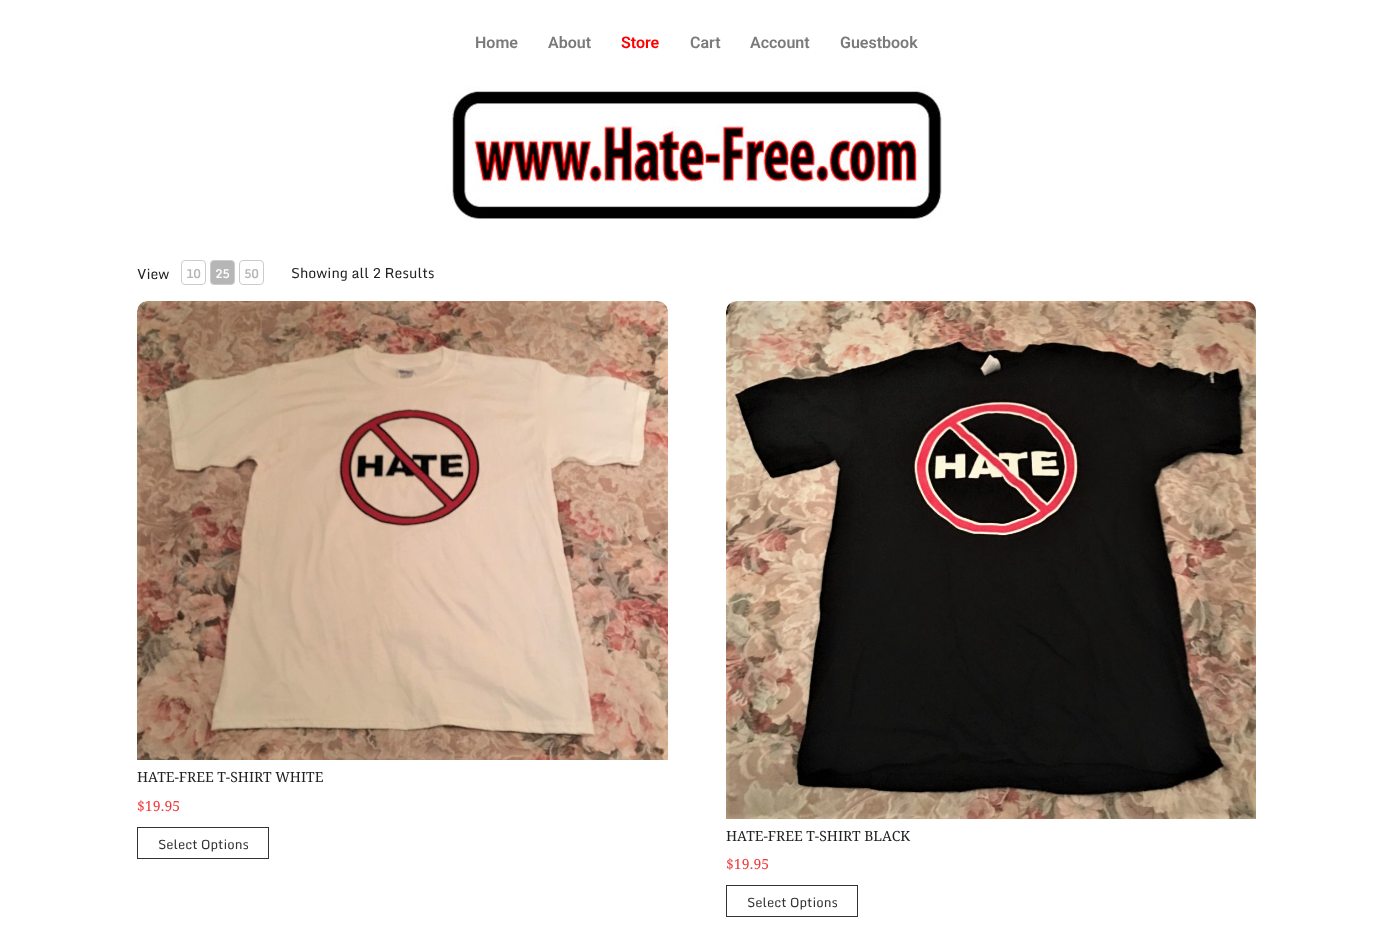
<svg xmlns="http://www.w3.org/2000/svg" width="1393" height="940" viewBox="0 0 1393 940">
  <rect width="100%" height="100%" fill="rgb(255,255,255)"/>
  <g font-family="Roboto" font-size="16" font-weight="600" fill="rgb(122,122,122)">
    <text x="475" y="48">Home</text>
    <text x="548" y="48">About</text>
  </g>
  <text x="621" y="48" font-family="Roboto" font-size="16" font-weight="600" fill="rgb(255,0,0)">Store</text>
  <g font-family="Roboto" font-size="16" font-weight="600" fill="rgb(122,122,122)">
    <text x="690" y="48">Cart</text>
    <text x="750" y="48">Account</text>
    <text x="840" y="48">Guestbook</text>
  </g>
  <image x="447" y="86" width="496" height="136" href="pic1.png"/>
  <text x="137" y="279" font-family="Monda" font-size="14" fill="rgb(34,34,34)">View</text>
  <rect x="181.5" y="260.5" width="24" height="24" rx="3.5" fill="none" stroke="rgb(204,204,204)"/>
  <text x="186" y="278" font-family="Monda" font-size="12" font-weight="bold" fill="rgb(182,182,182)">10</text>
  <rect x="210.5" y="260.5" width="24" height="24" rx="3.5" fill="rgb(182,182,182)" stroke="rgb(204,204,204)"/>
  <text x="215" y="278" font-family="Monda" font-size="12" font-weight="bold" fill="rgb(255,255,255)">25</text>
  <rect x="239.5" y="260.5" width="24" height="24" rx="3.5" fill="none" stroke="rgb(204,204,204)"/>
  <text x="244" y="278" font-family="Monda" font-size="12" font-weight="bold" fill="rgb(182,182,182)">50</text>
  <text x="291" y="278" font-family="Monda" font-size="14" fill="rgb(34,34,34)">Showing all 2 Results</text>
  <image x="137" y="301" width="531" height="459" href="pic2.png"/>
  <text x="137" y="782" font-family="Droid Serif" font-size="14" fill="rgb(34,34,34)">HATE-FREE T-SHIRT WHITE</text>
  <text x="137" y="811" font-family="Droid Serif" font-size="14" fill="rgb(238,59,59)">$19.95</text>
  <rect x="137.5" y="827.5" width="131" height="31" fill="none" stroke="rgb(51,51,51)"/>
  <text x="158" y="849" font-family="Monda" font-size="13" fill="rgb(51,51,51)">Select Options</text>
  <image x="726" y="301" width="530" height="518" href="pic3.png"/>
  <text x="726" y="841" font-family="Droid Serif" font-size="14" fill="rgb(34,34,34)">HATE-FREE T-SHIRT BLACK</text>
  <text x="726" y="869" font-family="Droid Serif" font-size="14" fill="rgb(238,59,59)">$19.95</text>
  <rect x="726.5" y="885.5" width="131" height="31" fill="none" stroke="rgb(51,51,51)"/>
  <text x="747" y="907" font-family="Monda" font-size="13" fill="rgb(51,51,51)">Select Options</text>
</svg>
